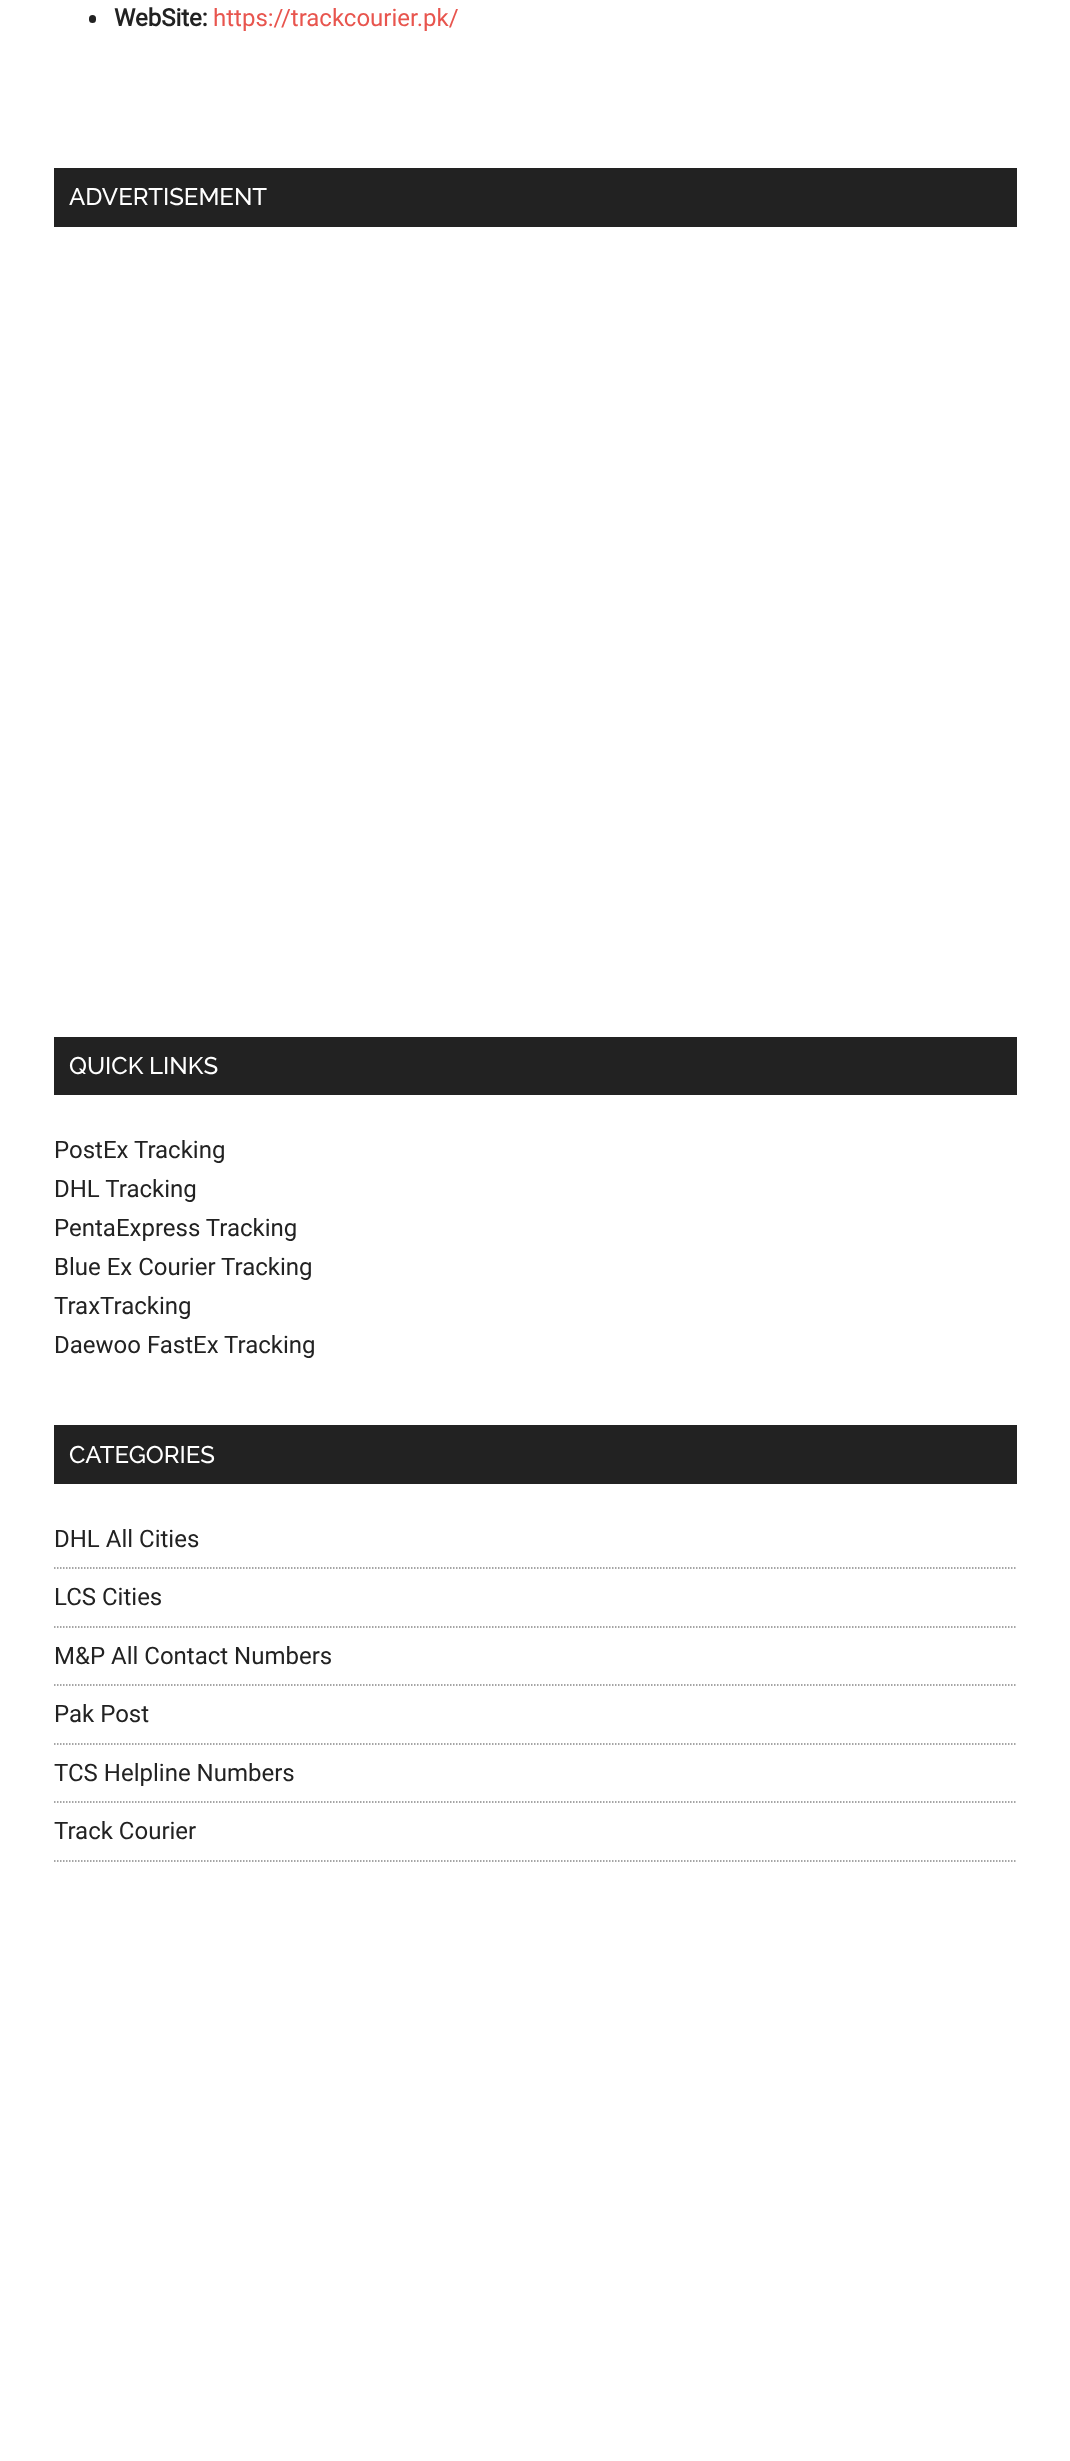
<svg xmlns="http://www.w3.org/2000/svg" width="1070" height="2461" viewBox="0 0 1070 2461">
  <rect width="100%" height="100%" fill="rgb(255,255,255)"/>
  <rect x="89" y="15" width="7" height="8" rx="3.5" fill="rgb(34,34,34)"/>
  <text x="114" y="26" font-family="Roboto" font-size="24" font-weight="bold" fill="rgb(34,34,34)">WebSite:</text>
  <text x="213" y="26" font-family="Roboto" font-size="24" fill="rgb(232,85,78)">https://trackcourier.pk/</text>
  <rect x="54" y="168" width="963" height="59" fill="rgb(34,34,34)"/>
  <text x="69" y="205" font-family="Raleway" font-size="24" font-weight="500" fill="rgb(255,255,255)">ADVERTISEMENT</text>
  <rect x="54" y="1037" width="963" height="58" fill="rgb(34,34,34)"/>
  <text x="69" y="1074" font-family="Raleway" font-size="24" font-weight="500" fill="rgb(255,255,255)">QUICK LINKS</text>
  <g font-family="Roboto" font-size="24" fill="rgb(34,34,34)">
    <text>
      <tspan x="54" y="1158">PostEx Tracking</tspan>
      <tspan x="54" y="1197">DHL Tracking</tspan>
      <tspan x="54" y="1236">PentaExpress Tracking</tspan>
      <tspan x="54" y="1275">Blue Ex Courier Tracking</tspan>
      <tspan x="54" y="1314">TraxTracking</tspan>
      <tspan x="54" y="1353">Daewoo FastEx Tracking</tspan>
    </text>
  </g>
  <rect x="54" y="1425" width="963" height="59" fill="rgb(34,34,34)"/>
  <text x="69" y="1463" font-family="Raleway" font-size="24" font-weight="500" fill="rgb(255,255,255)">CATEGORIES</text>
  <path d="M54 1568H1017" fill="none" stroke="rgb(136,136,136)" stroke-width="1.5" stroke-dasharray="1.5 1.5"/>
  <text x="54" y="1547" font-family="Roboto" font-size="24" fill="rgb(34,34,34)">DHL All Cities</text>
  <path d="M54 1627H1017" fill="none" stroke="rgb(136,136,136)" stroke-width="1.5" stroke-dasharray="1.5 1.5"/>
  <text x="54" y="1605" font-family="Roboto" font-size="24" fill="rgb(34,34,34)">LCS Cities</text>
  <path d="M54 1685H1017" fill="none" stroke="rgb(136,136,136)" stroke-width="1.5" stroke-dasharray="1.5 1.5"/>
  <text x="54" y="1664" font-family="Roboto" font-size="24" fill="rgb(34,34,34)">M&amp;P All Contact Numbers</text>
  <path d="M54 1744H1017" fill="none" stroke="rgb(136,136,136)" stroke-width="1.5" stroke-dasharray="1.5 1.5"/>
  <text x="54" y="1722" font-family="Roboto" font-size="24" fill="rgb(34,34,34)">Pak Post</text>
  <path d="M54 1802H1017" fill="none" stroke="rgb(136,136,136)" stroke-width="1.5" stroke-dasharray="1.5 1.5"/>
  <text x="54" y="1781" font-family="Roboto" font-size="24" fill="rgb(34,34,34)">TCS Helpline Numbers</text>
  <path d="M54 1861H1017" fill="none" stroke="rgb(136,136,136)" stroke-width="1.5" stroke-dasharray="1.5 1.5"/>
  <text x="54" y="1839" font-family="Roboto" font-size="24" fill="rgb(34,34,34)">Track Courier</text>
</svg>
